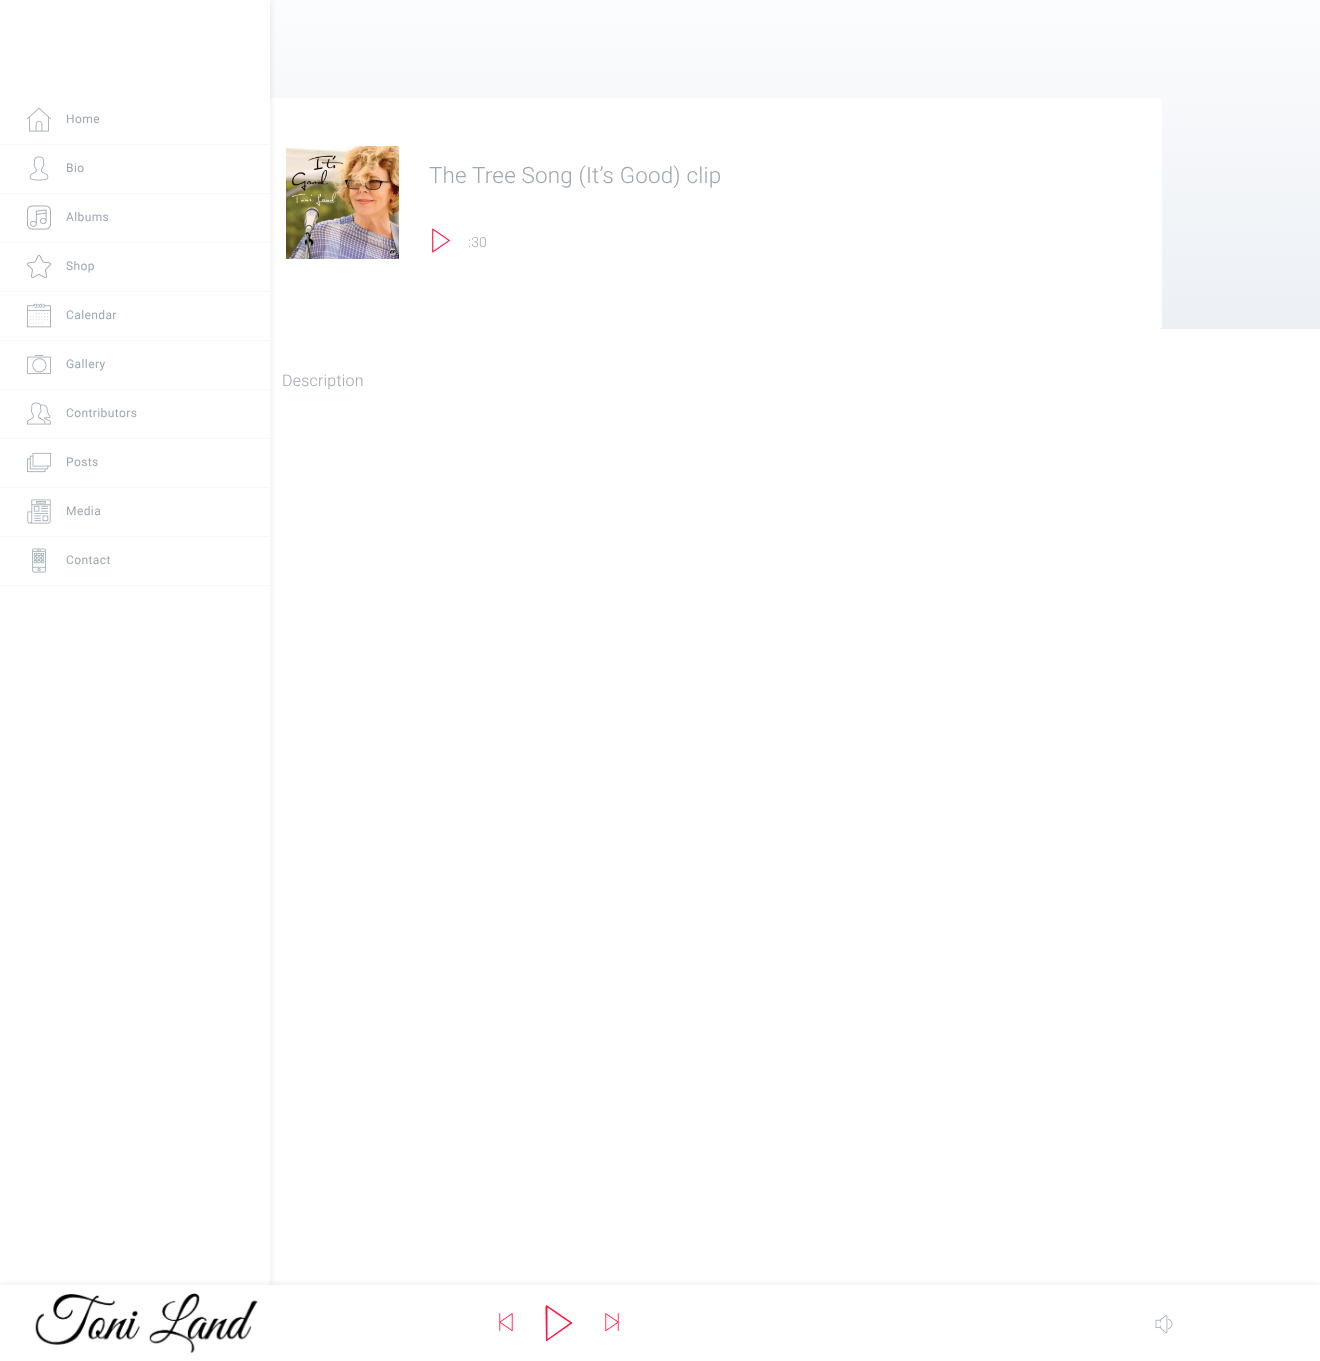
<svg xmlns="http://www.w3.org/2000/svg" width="1320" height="1361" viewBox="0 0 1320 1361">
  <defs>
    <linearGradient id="g1" gradientUnits="userSpaceOnUse" x1="700" y1="-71" x2="700" y2="329"><stop offset="0" stop-color="rgb(255,255,255)"/><stop offset="1" stop-color="rgb(236,240,245)"/></linearGradient>
  </defs>
  <rect width="100%" height="100%" fill="rgb(255,255,255)"/>
  <rect x="270" y="0" width="1050" height="329" fill="url(#g1)"/>
  <rect x="238" y="98" width="924" height="231" rx="4" fill="rgb(255,255,255)"/>
  <rect x="0" y="0" width="270" height="1361" fill="rgba(0,0,0,0.1)" filter="blur(3px)"/>
  <rect x="0" y="0" width="270" height="1285" fill="rgb(255,255,255)"/>
  <rect x="0" y="144" width="270" height="1" fill="rgb(248,248,248)"/>
  <image x="27" y="107" width="24" height="25" href="pic1.png"/>
  <text x="66" y="123" font-family="Roboto" font-size="12" letter-spacing="0.4" fill="rgb(156,168,176)">Home</text>
  <rect x="0" y="193" width="270" height="1" fill="rgb(248,248,248)"/>
  <image x="29" y="156" width="20" height="25" href="pic2.png"/>
  <text x="66" y="172" font-family="Roboto" font-size="12" letter-spacing="0.4" fill="rgb(156,168,176)">Bio</text>
  <rect x="0" y="242" width="270" height="1" fill="rgb(248,248,248)"/>
  <image x="27" y="205" width="24" height="25" href="pic3.png"/>
  <text x="66" y="221" font-family="Roboto" font-size="12" letter-spacing="0.4" fill="rgb(156,168,176)">Albums</text>
  <rect x="0" y="291" width="270" height="1" fill="rgb(248,248,248)"/>
  <image x="27" y="255" width="24" height="23" href="pic4.png"/>
  <text x="66" y="270" font-family="Roboto" font-size="12" letter-spacing="0.4" fill="rgb(156,168,176)">Shop</text>
  <rect x="0" y="340" width="270" height="1" fill="rgb(248,248,248)"/>
  <image x="27" y="303" width="24" height="25" href="pic5.png"/>
  <text x="66" y="319" font-family="Roboto" font-size="12" letter-spacing="0.4" fill="rgb(156,168,176)">Calendar</text>
  <rect x="0" y="389" width="270" height="1" fill="rgb(248,248,248)"/>
  <image x="27" y="355" width="24" height="19" href="pic6.png"/>
  <text x="66" y="368" font-family="Roboto" font-size="12" letter-spacing="0.4" fill="rgb(156,168,176)">Gallery</text>
  <rect x="0" y="438" width="270" height="1" fill="rgb(248,248,248)"/>
  <image x="27" y="402" width="24" height="23" href="pic7.png"/>
  <text x="66" y="417" font-family="Roboto" font-size="12" letter-spacing="0.4" fill="rgb(156,168,176)">Contributors</text>
  <rect x="0" y="487" width="270" height="1" fill="rgb(248,248,248)"/>
  <image x="27" y="452" width="24" height="21" href="pic8.png"/>
  <text x="66" y="466" font-family="Roboto" font-size="12" letter-spacing="0.4" fill="rgb(156,168,176)">Posts</text>
  <rect x="0" y="536" width="270" height="1" fill="rgb(248,248,248)"/>
  <image x="27" y="499" width="24" height="25" href="pic9.png"/>
  <text x="66" y="515" font-family="Roboto" font-size="12" letter-spacing="0.4" fill="rgb(156,168,176)">Media</text>
  <rect x="0" y="585" width="270" height="1" fill="rgb(248,248,248)"/>
  <image x="32" y="548" width="14" height="25" href="pic10.png"/>
  <text x="66" y="564" font-family="Roboto" font-size="12" letter-spacing="0.4" fill="rgb(156,168,176)">Contact</text>
  <image x="286" y="146" width="113" height="113" href="pic11.png"/>
  <text x="429" y="183" font-family="Roboto" font-size="22.4" font-weight="300" letter-spacing="0.2" fill="rgb(156,168,176)">The Tree Song (It’s Good) clip</text>
  <image x="432" y="228" width="18" height="25" href="pic12.png"/>
  <text x="468" y="247" font-family="Roboto" font-size="14" font-weight="300" letter-spacing="0.2" fill="rgb(156,168,176)">:30</text>
  <text x="282" y="386" font-family="Roboto" font-size="16" font-weight="300" letter-spacing="0.2" fill="rgb(156,168,176)">Description</text>
  <rect x="0" y="1285" width="1320" height="76" fill="rgba(0,0,0,0.1)" filter="blur(3px)"/>
  <rect x="0" y="1285" width="1320" height="76" fill="rgb(255,255,255)"/>
  <image x="35" y="1293" width="223" height="60" href="pic13.png"/>
  <image x="499" y="1313" width="14" height="19" href="pic14.png"/>
  <path d="M572 1322.5L551 1308C545 1304 545.5 1303.5 545.5 1312L546 1340.5C546 1341 546.5 1341.5 547 1341L572 1323.5ZM547.5 1339V1307.5L570 1323Z" fill="rgb(255,23,68)"/>
  <image x="605" y="1313" width="14" height="19" href="pic15.png"/>
  <image x="1155" y="1315" width="18" height="19" href="pic16.png"/>
</svg>
